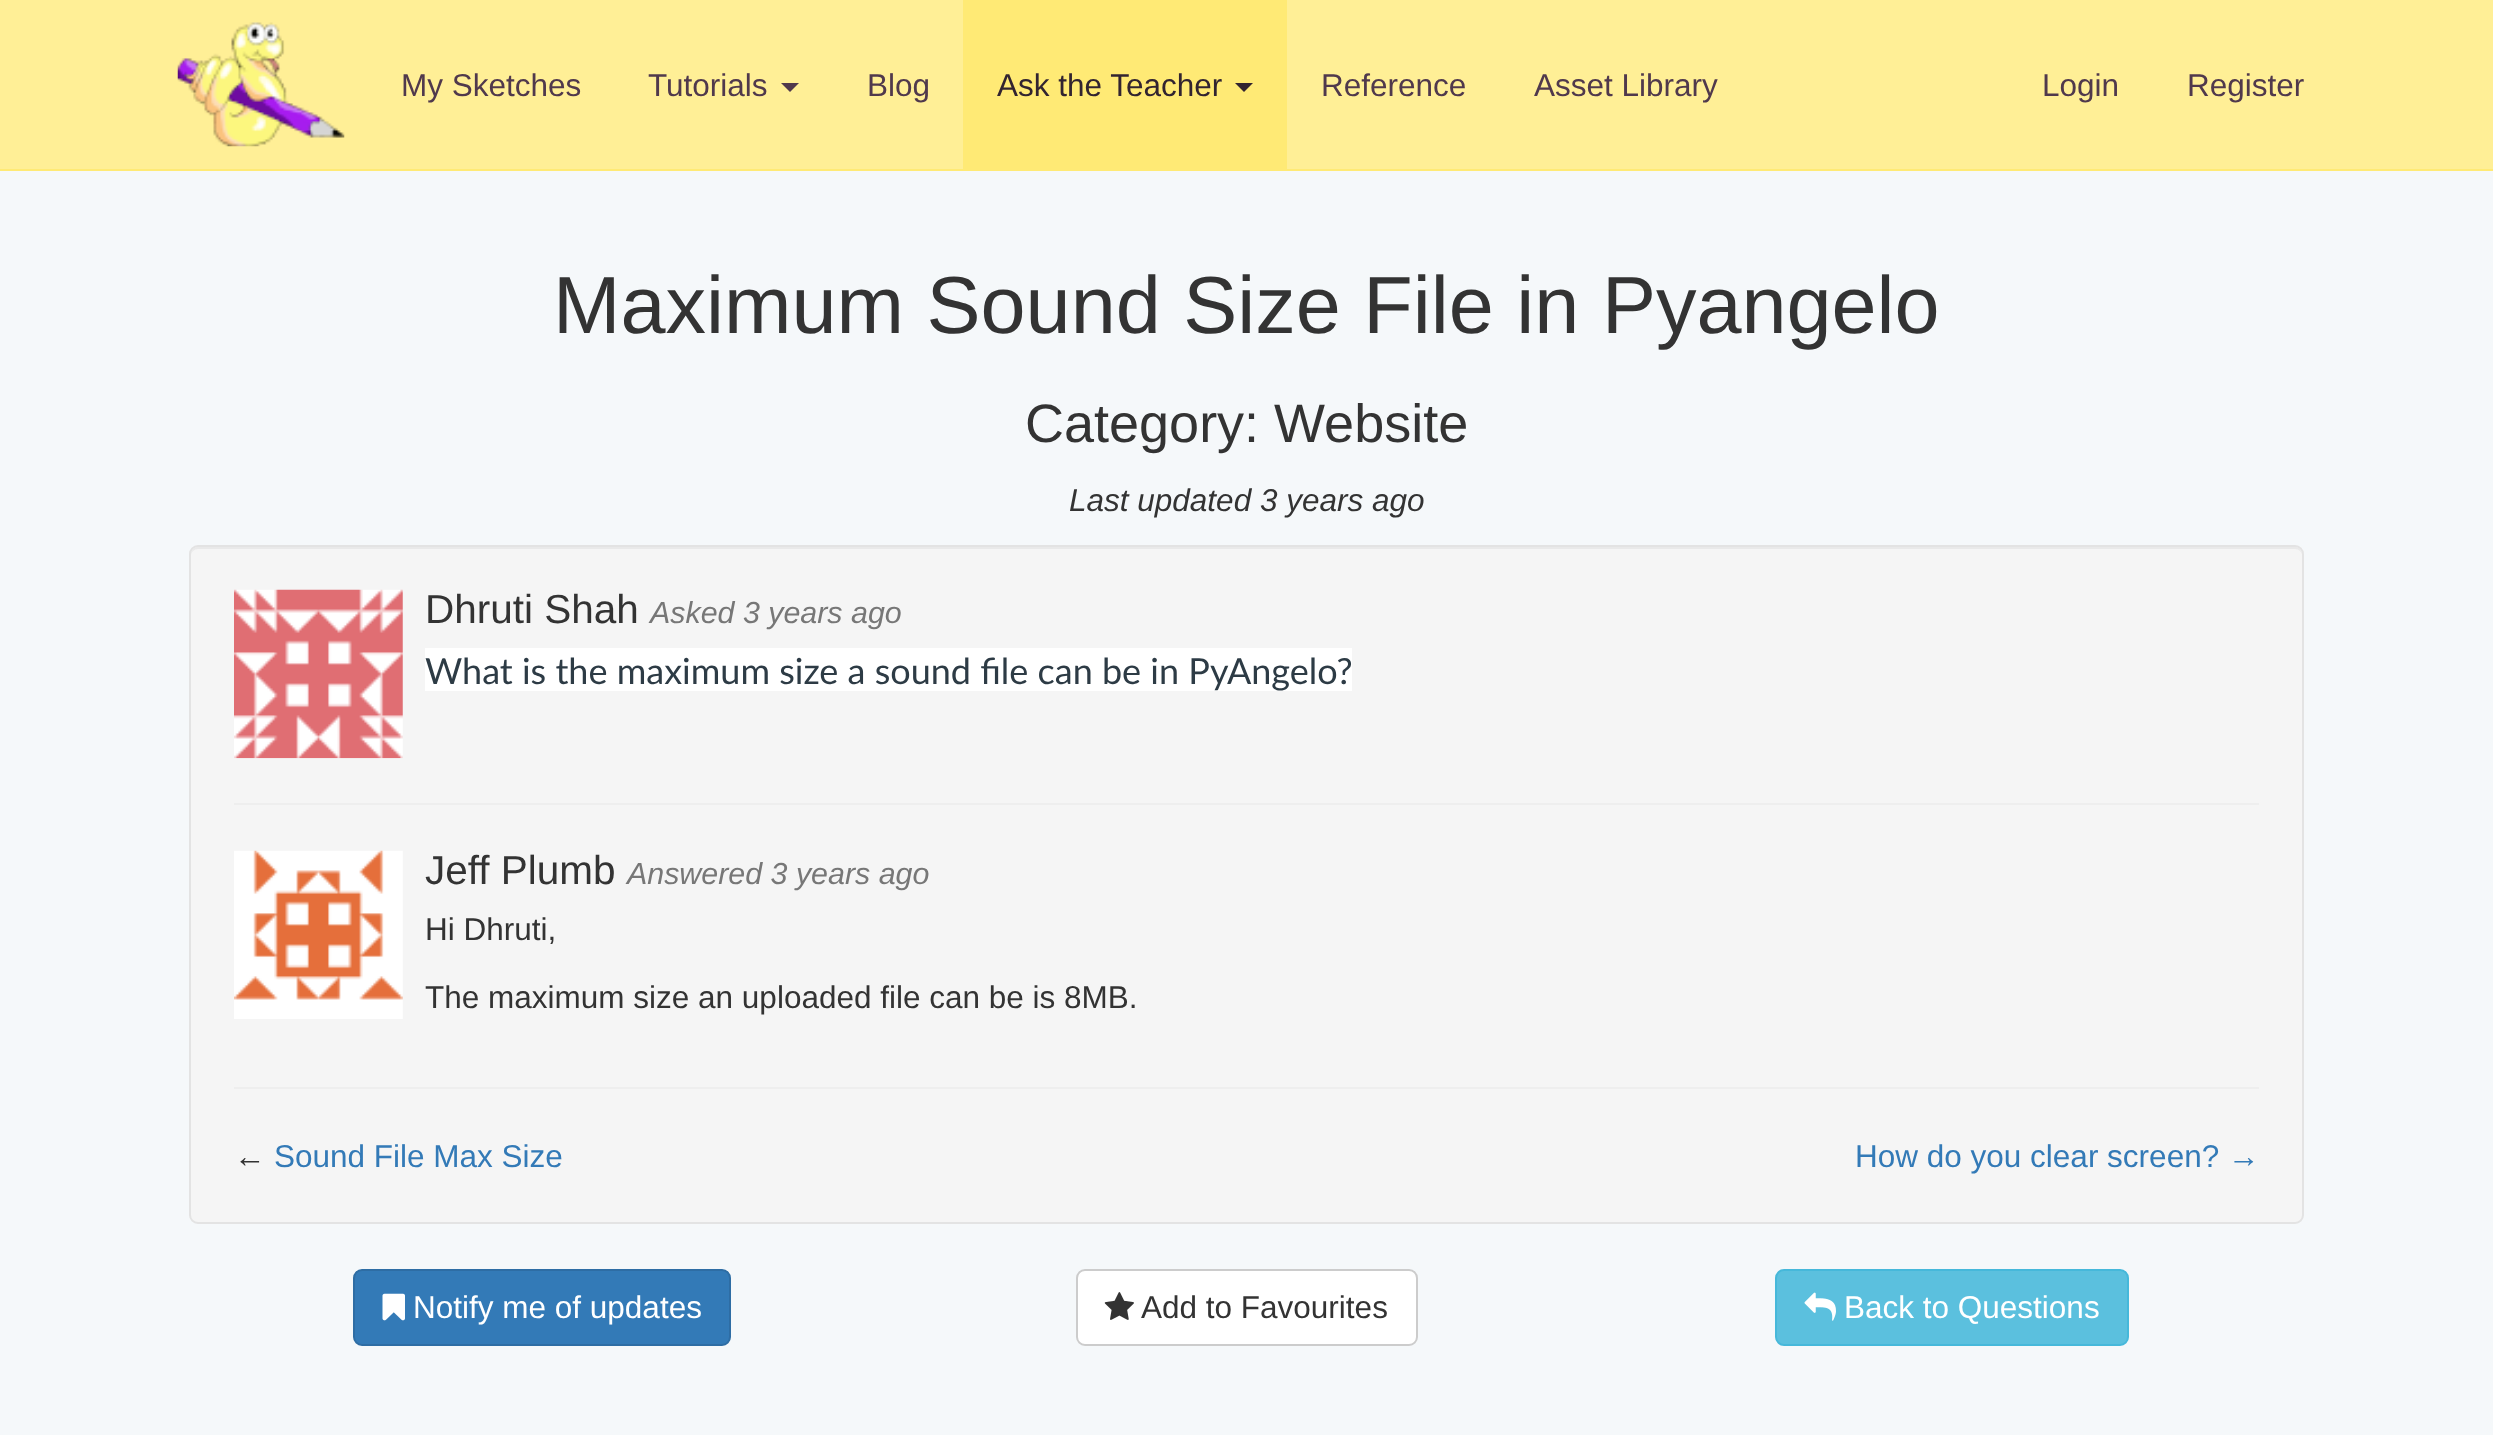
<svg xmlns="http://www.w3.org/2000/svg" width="2493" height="1435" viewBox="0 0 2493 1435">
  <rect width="100%" height="100%" fill="rgb(245,248,250)"/>
  <rect x="0" y="0" width="2493" height="169" fill="rgb(255,239,150)"/>
  <rect x="0" y="169" width="2493" height="2" fill="rgb(255,234,117)"/>
  <image x="177" y="22" width="168" height="125" href="pic1.png"/>
  <g font-family="Liberation Sans" font-size="31.5" fill="rgb(80,57,76)">
    <text x="401" y="96">My Sketches</text>
    <text x="648" y="96">Tutorials</text>
  </g>
  <path d="M781 83H799L790 92Z" fill="rgb(80,57,76)"/>
  <text x="867" y="96" font-family="Liberation Sans" font-size="31.5" fill="rgb(80,57,76)">Blog</text>
  <rect x="963" y="0" width="324" height="169" fill="rgb(255,234,117)"/>
  <text x="997" y="96" font-family="Liberation Sans" font-size="31.5" fill="rgb(50,36,48)">Ask the Teacher</text>
  <path d="M1235 83H1253L1244 92Z" fill="rgb(50,36,48)"/>
  <g font-family="Liberation Sans" font-size="31.5" fill="rgb(80,57,76)">
    <text x="1321" y="96">Reference</text>
    <text x="1534" y="96">Asset Library</text>
    <text x="2042" y="96">Login</text>
    <text x="2187" y="96">Register</text>
  </g>
  <text x="553" y="333" font-family="Liberation Sans" font-size="81" fill="rgb(51,51,51)">Maximum Sound Size File in Pyangelo</text>
  <text x="1025" y="442" font-family="Liberation Sans" font-size="54" fill="rgb(51,51,51)">Category: Website</text>
  <text x="1069" y="511" font-family="Liberation Sans" font-size="31.5" font-style="italic" fill="rgb(51,51,51)">Last updated 3 years ago</text>
  <rect x="189" y="545" width="2115" height="679" rx="9" fill="rgb(245,245,245)"/>
  <path d="M198 549H2295C2299 549 2302 552 2302 556C2302 552 2300 547 2295 547H198C193 547 191 552 191 556C191 552 194 549 198 549Z" fill="rgb(233,233,233)"/>
  <rect x="190" y="546" width="2113" height="677" rx="8" fill="none" stroke="rgb(227,227,227)" stroke-width="2"/>
  <image x="234" y="589" width="169" height="170" href="pic2.png"/>
  <text x="425" y="623" font-family="Liberation Sans" font-size="40.5" fill="rgb(51,51,51)">Dhruti Shah</text>
  <text x="650" y="623" font-family="Liberation Sans" font-size="30.4" font-style="italic" fill="rgb(119,119,119)">Asked 3 years ago</text>
  <rect x="425" y="648" width="927" height="43" fill="rgb(255,255,255)"/>
  <text x="425" y="684" font-family="Lato" font-size="36" fill="rgb(45,59,69)">What is the maximum size a sound file can be in PyAngelo?</text>
  <rect x="234" y="803" width="2025" height="2" fill="rgb(238,238,238)"/>
  <image x="234" y="850" width="169" height="169" href="pic3.png"/>
  <text x="425" y="884" font-family="Liberation Sans" font-size="40.5" fill="rgb(51,51,51)">Jeff Plumb</text>
  <text x="627" y="884" font-family="Liberation Sans" font-size="30.4" font-style="italic" fill="rgb(119,119,119)">Answered 3 years ago</text>
  <g font-family="Liberation Sans" font-size="31.5" fill="rgb(51,51,51)">
    <text x="425" y="940">Hi Dhruti,</text>
    <text x="425" y="1008">The maximum size an uploaded file can be is 8MB.</text>
  </g>
  <rect x="234" y="1087" width="2025" height="2" fill="rgb(238,238,238)"/>
  <text x="234" y="1167" font-family="Liberation Sans" font-size="31.5" fill="rgb(51,51,51)">←</text>
  <g font-family="Liberation Sans" font-size="31.5" fill="rgb(51,122,183)">
    <text x="274" y="1167">Sound File Max Size</text>
    <text x="1855" y="1167">How do you clear screen? →</text>
  </g>
  <rect x="354" y="1270" width="376" height="75" rx="8" fill="rgb(51,122,183)" stroke="rgb(46,109,164)" stroke-width="2"/>
  <image x="382" y="1293" width="23" height="28" href="pic4.png"/>
  <text x="413" y="1318" font-family="Liberation Sans" font-size="31.5" fill="rgb(255,255,255)">Notify me of updates</text>
  <rect x="1077" y="1270" width="340" height="75" rx="8" fill="rgb(255,255,255)" stroke="rgb(204,204,204)" stroke-width="2"/>
  <image x="1104" y="1292" width="30" height="28" href="pic5.png"/>
  <text x="1141" y="1318" font-family="Liberation Sans" font-size="31.5" fill="rgb(51,51,51)">Add to Favourites</text>
  <rect x="1776" y="1270" width="352" height="75" rx="8" fill="rgb(91,192,222)" stroke="rgb(70,184,218)" stroke-width="2"/>
  <image x="1804" y="1292" width="32" height="29" href="pic6.png"/>
  <text x="1844" y="1318" font-family="Liberation Sans" font-size="31.5" fill="rgb(255,255,255)">Back to Questions</text>
</svg>
